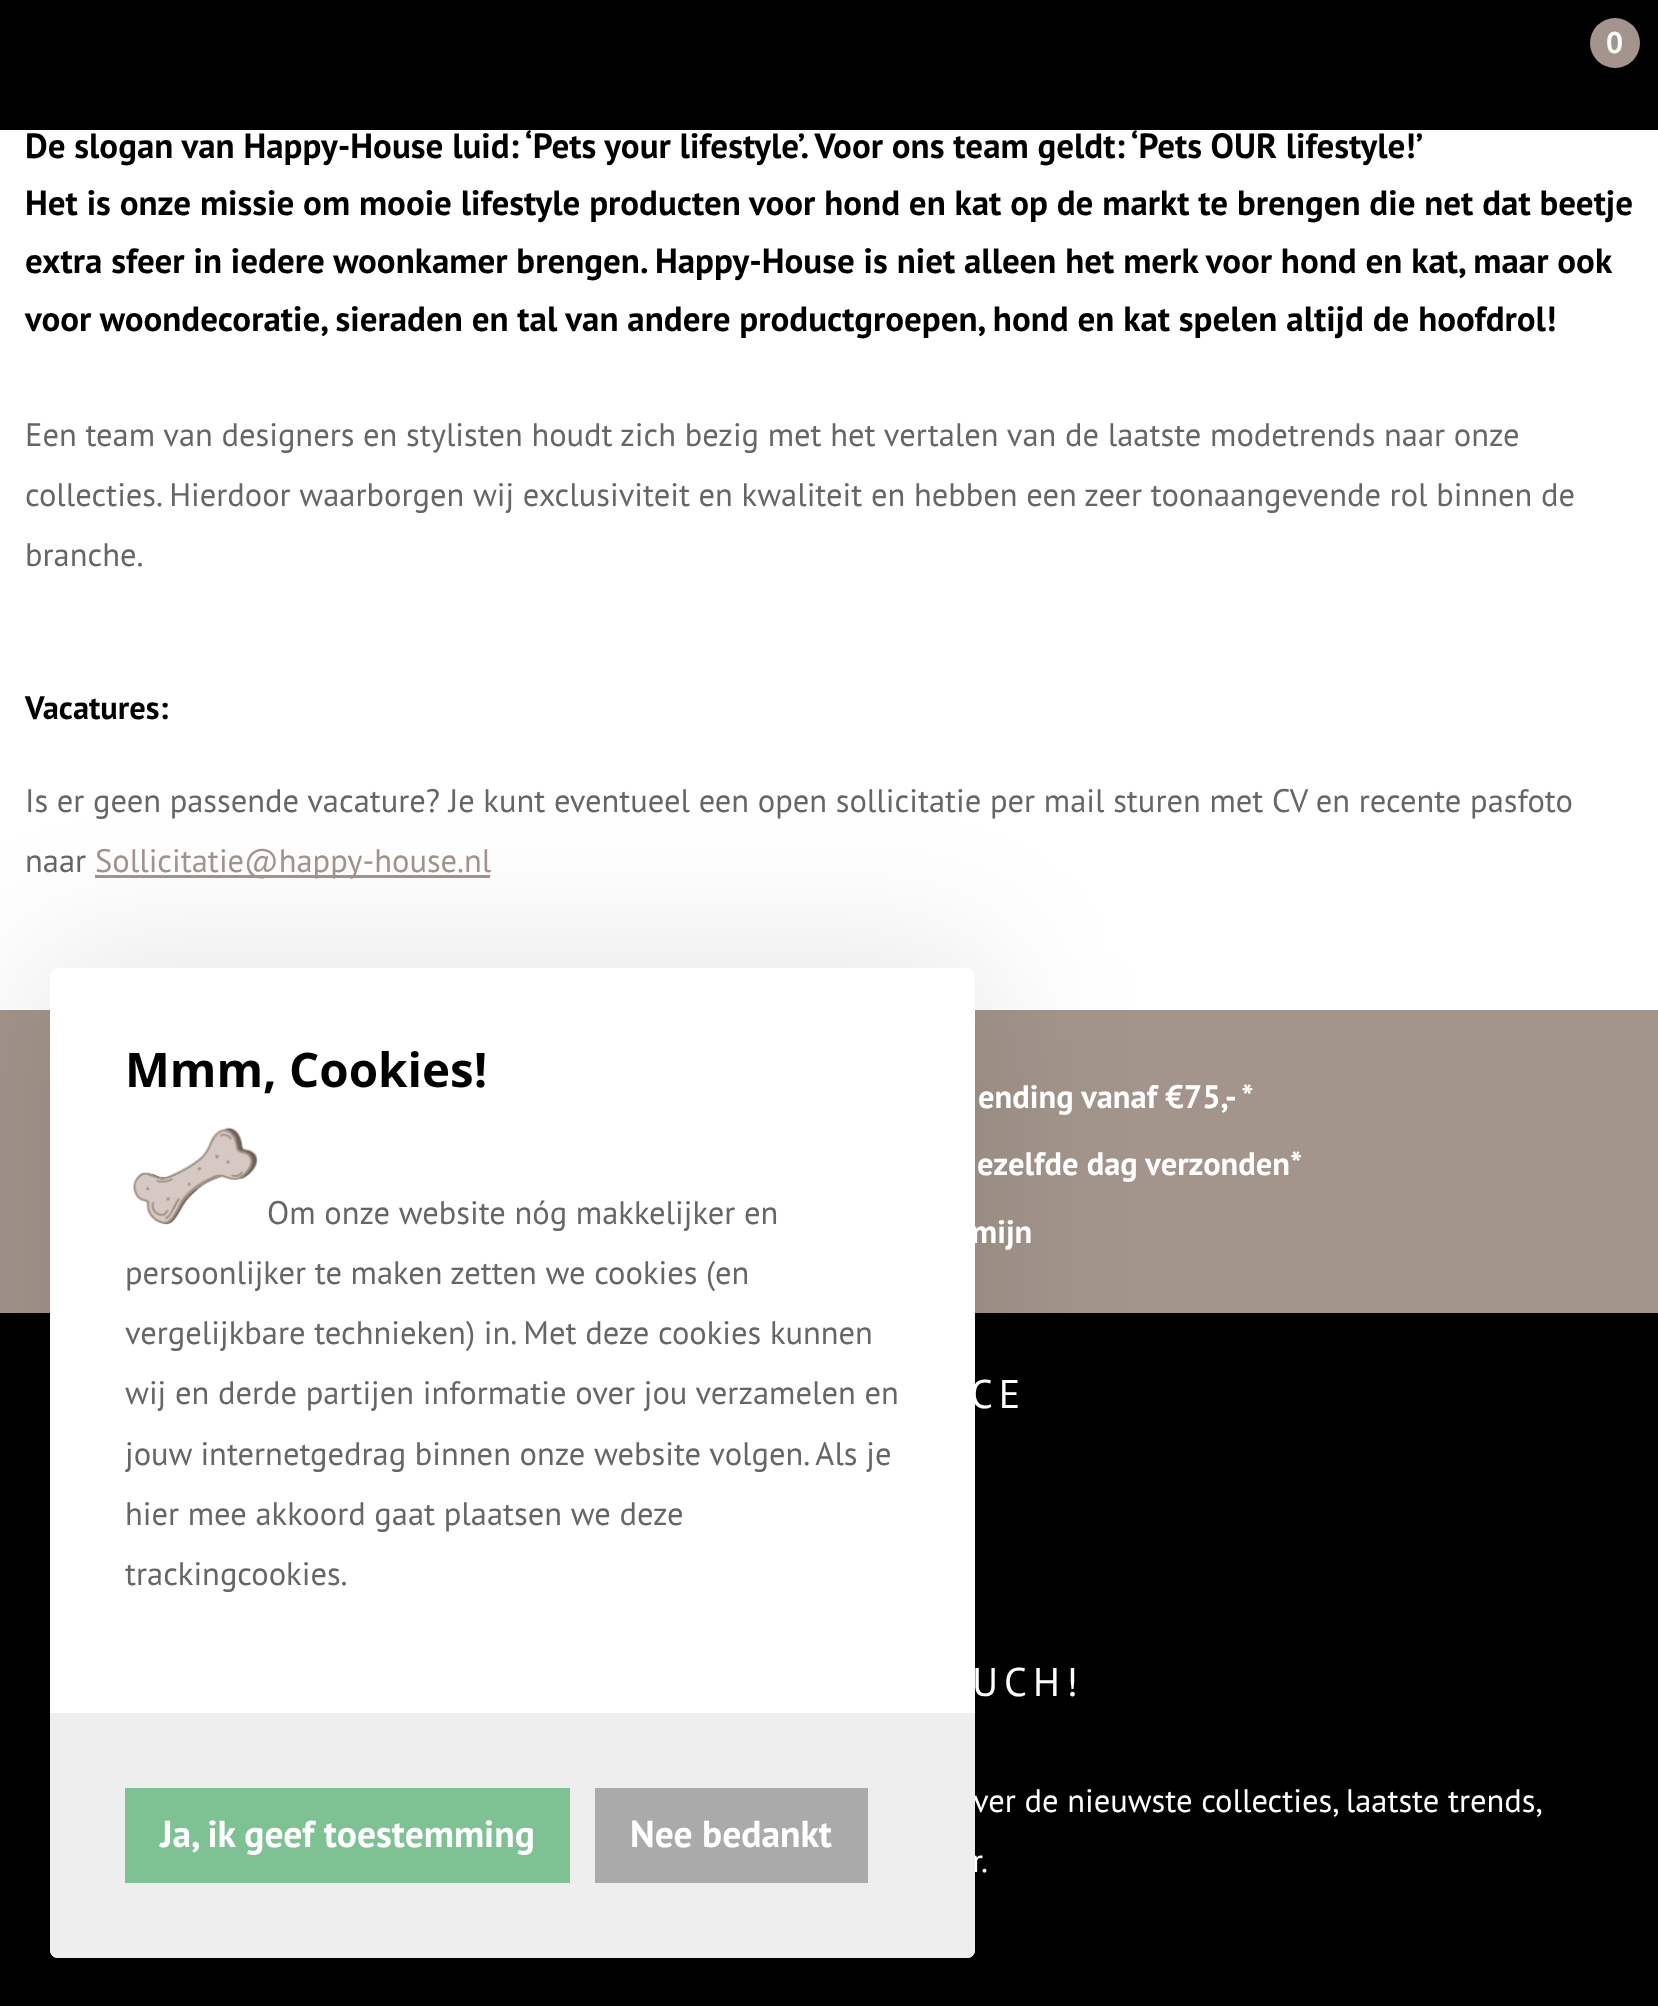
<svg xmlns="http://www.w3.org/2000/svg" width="1658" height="2006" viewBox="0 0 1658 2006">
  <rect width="100%" height="100%" fill="rgb(255,255,255)"/>
  <rect x="0" y="0" width="1658" height="130" fill="rgb(0,0,0)"/>
  <circle cx="1615" cy="43" r="25" fill="rgb(163,149,141)"/>
  <text x="1606" y="53" font-family="PT Sans" font-size="30" font-weight="bold" fill="rgb(255,255,255)">0</text>
  <g font-family="PT Sans" font-size="35" font-weight="bold" fill="rgb(0,0,0)">
    <text>
      <tspan x="25" y="158">De slogan van Happy-House luid: ‘Pets your lifestyle’. Voor ons team geldt: ‘Pets OUR lifestyle!’</tspan>
      <tspan x="25" y="215">Het is onze missie om mooie lifestyle producten voor hond en kat op de markt te brengen die net dat beetje</tspan>
      <tspan x="25" y="273">extra sfeer in iedere woonkamer brengen. Happy-House is niet alleen het merk voor hond en kat, maar ook</tspan>
      <tspan x="25" y="331">voor woondecoratie, sieraden en tal van andere productgroepen, hond en kat spelen altijd de hoofdrol!</tspan>
    </text>
  </g>
  <g font-family="PT Sans" font-size="32.5" fill="rgb(102,102,102)">
    <text>
      <tspan x="25" y="446">Een team van designers en stylisten houdt zich bezig met het vertalen van de laatste modetrends naar onze</tspan>
      <tspan x="25" y="506">collecties. Hierdoor waarborgen wij exclusiviteit en kwaliteit en hebben een zeer toonaangevende rol binnen de</tspan>
      <tspan x="25" y="566">branche.</tspan>
    </text>
  </g>
  <text x="25" y="719" font-family="PT Sans" font-size="32.5" font-weight="bold" fill="rgb(0,0,0)">Vacatures:</text>
  <g font-family="PT Sans" font-size="32.5" fill="rgb(102,102,102)">
    <text>
      <tspan x="25" y="812">Is er geen passende vacature? Je kunt eventueel een open sollicitatie per mail sturen met CV en recente pasfoto</tspan>
      <tspan x="25" y="872">naar</tspan>
    </text>
  </g>
  <rect x="95" y="875" width="395" height="3" fill="rgb(163,149,141)"/>
  <text x="95" y="872" font-family="PT Sans" font-size="32.5" fill="rgb(163,149,141)">Sollicitatie@happy-house.nl</text>
  <rect x="0" y="1010" width="1658" height="303" fill="rgb(163,149,140)"/>
  <rect x="0" y="1313" width="1658" height="693" fill="rgb(0,0,0)"/>
  <rect x="38" y="955" width="950" height="1015" rx="20" fill="rgba(0,0,0,0.1)" filter="blur(75px)"/>
  <rect x="50" y="968" width="925" height="990" rx="8" fill="rgb(255,255,255)"/>
  <text x="125" y="1087" font-family="Open Sans" font-size="47.5" font-weight="bold" fill="rgb(0,0,0)">Mmm, Cookies!</text>
  <image x="133" y="1127" width="125" height="98" href="pic1.png"/>
  <g font-family="PT Sans" font-size="32.5" fill="rgb(102,102,102)">
    <text x="267" y="1224">Om onze website nóg makkelijker en</text>
    <text>
      <tspan x="125" y="1284">persoonlijker te maken zetten we cookies (en</tspan>
      <tspan x="125" y="1344">vergelijkbare technieken) in. Met deze cookies kunnen</tspan>
      <tspan x="125" y="1404">wij en derde partijen informatie over jou verzamelen en</tspan>
      <tspan x="125" y="1465">jouw internetgedrag binnen onze website volgen. Als je</tspan>
      <tspan x="125" y="1525">hier mee akkoord gaat plaatsen we deze</tspan>
      <tspan x="125" y="1585">trackingcookies.</tspan>
    </text>
  </g>
  <g font-family="PT Sans" font-size="32.5" fill="rgb(255,255,255)">
    <text x="973" y="1812">ver de nieuwste collecties, laatste trends,</text>
    <text x="972" y="1872">r.</text>
  </g>
  <path d="M50 1713H975V1950C975 1954.5 971.5 1958 967 1958H58C53.5 1958 50 1954.5 50 1950Z" fill="rgb(238,238,238)"/>
  <rect x="125" y="1788" width="445" height="95" fill="rgb(126,194,148)"/>
  <text x="160" y="1847" font-family="PT Sans" font-size="37.5" font-weight="bold" fill="rgb(255,255,255)">Ja, ik geef toestemming</text>
  <rect x="595" y="1788" width="273" height="95" fill="rgb(170,170,170)"/>
  <text x="630" y="1847" font-family="PT Sans" font-size="37.5" font-weight="bold" fill="rgb(255,255,255)">Nee bedankt</text>
  <g font-family="PT Sans" font-size="32.5" font-weight="bold" fill="rgb(255,255,255)">
    <text x="978" y="1108">ending vanaf €75,- *</text>
    <text x="977" y="1175">ezelfde dag verzonden*</text>
    <text x="971" y="1243">mijn</text>
  </g>
  <g font-family="PT Sans" font-size="40" letter-spacing="6" fill="rgb(255,255,255)">
    <text x="970" y="1408">CE</text>
    <text x="972" y="1696">UCH!</text>
  </g>
</svg>
